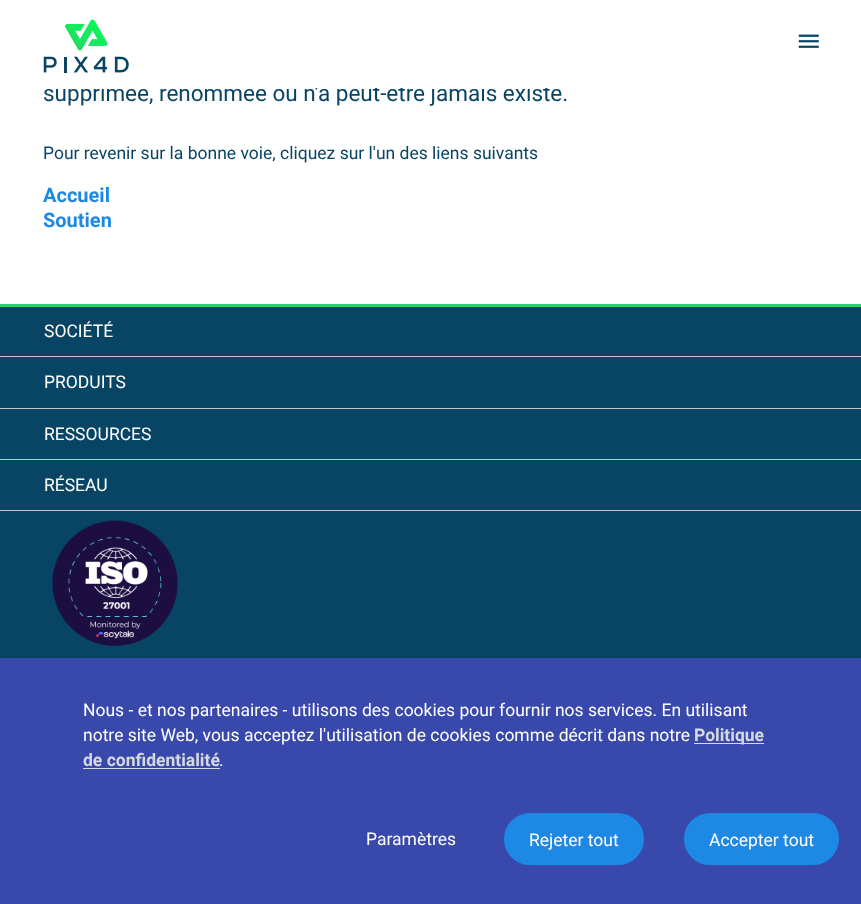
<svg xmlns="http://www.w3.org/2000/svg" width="861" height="904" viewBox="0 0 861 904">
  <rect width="100%" height="100%" fill="rgb(255,255,255)"/>
  <text x="43" y="101" font-family="Roboto" font-size="22.5" fill="rgb(8,69,100)">supprimée, renommée ou n'a peut-être jamais existé.</text>
  <rect x="101" y="84" width="459" height="4" fill="rgb(255,255,255)"/>
  <image x="43" y="19" width="86" height="54" href="pic1.png"/>
  <image x="798" y="34" width="21" height="14" href="pic2.png"/>
  <text x="43" y="159" font-family="Roboto" font-size="17.5" fill="rgb(8,69,100)">Pour revenir sur la bonne voie, cliquez sur l'un des liens suivants</text>
  <g font-family="Roboto" font-size="20" font-weight="bold" fill="rgb(30,136,229)">
    <text>
      <tspan x="43" y="202">Accueil</tspan>
      <tspan x="43" y="227">Soutien</tspan>
    </text>
  </g>
  <rect x="0" y="307" width="861" height="351" fill="rgb(8,69,100)"/>
  <rect x="0" y="304" width="861" height="3" fill="rgb(42,212,99)"/>
  <rect x="0" y="356" width="861" height="1" fill="rgb(196,196,196)"/>
  <text x="44" y="337" font-family="Roboto" font-size="17.5" fill="rgb(255,255,255)">SOCIÉTÉ</text>
  <rect x="0" y="408" width="861" height="1" fill="rgb(196,196,196)"/>
  <text x="44" y="388" font-family="Roboto" font-size="17.5" fill="rgb(255,255,255)">PRODUITS</text>
  <rect x="0" y="459" width="861" height="1" fill="rgb(196,196,196)"/>
  <text x="44" y="440" font-family="Roboto" font-size="17.5" fill="rgb(255,255,255)">RESSOURCES</text>
  <rect x="0" y="510" width="861" height="1" fill="rgb(196,196,196)"/>
  <text x="44" y="491" font-family="Roboto" font-size="17.5" fill="rgb(255,255,255)">RÉSEAU</text>
  <image x="52" y="520" width="126" height="126" href="pic3.png"/>
  <rect x="0" y="658" width="861" height="246" fill="rgb(57,73,171)"/>
  <g font-family="Roboto" font-size="17.5" fill="rgb(255,255,255)">
    <text>
      <tspan x="83" y="716">Nous - et nos partenaires - utilisons des cookies pour fournir nos services. En utilisant</tspan>
      <tspan x="83" y="741">notre site Web, vous acceptez l'utilisation de cookies comme décrit dans notre</tspan>
    </text>
  </g>
  <rect x="694" y="743" width="70" height="1" fill="rgb(214,218,224)"/>
  <g font-family="Roboto" font-size="17.5" font-weight="bold" fill="rgb(214,218,224)">
    <text x="694" y="741">Politique</text>
    <text x="83" y="766">de confidentialité</text>
  </g>
  <rect x="83" y="768" width="137" height="1" fill="rgb(214,218,224)"/>
  <g font-family="Roboto" font-size="17.5" fill="rgb(255,255,255)">
    <text x="219" y="766">.</text>
    <text x="366" y="845">Paramètres</text>
  </g>
  <rect x="505.5" y="814.5" width="137" height="49" rx="24.5" fill="rgb(30,136,229)" stroke="rgb(30,136,229)" stroke-width="3"/>
  <text x="529" y="846" font-family="Roboto" font-size="17.5" fill="rgb(255,255,255)">Rejeter tout</text>
  <rect x="685.5" y="814.5" width="152" height="49" rx="24.5" fill="rgb(30,136,229)" stroke="rgb(30,136,229)" stroke-width="3"/>
  <text x="709" y="846" font-family="Roboto" font-size="17.5" fill="rgb(255,255,255)">Accepter tout</text>
</svg>
